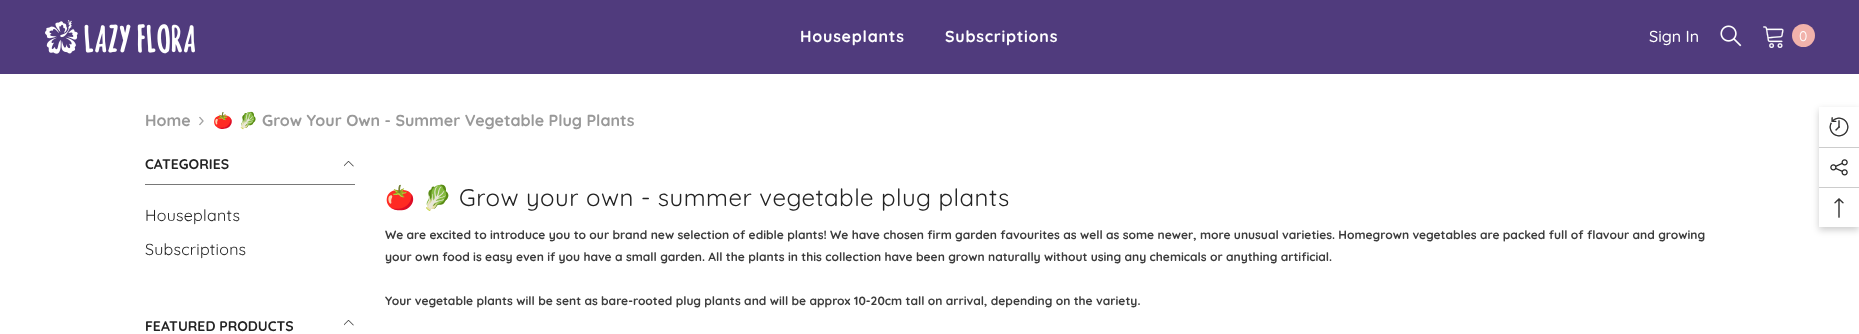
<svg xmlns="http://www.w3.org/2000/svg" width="1859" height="334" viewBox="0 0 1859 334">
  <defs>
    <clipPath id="clip1"><path d="M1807 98H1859V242H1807ZM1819 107H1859V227H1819Z" clip-rule="evenodd"/></clipPath>
  </defs>
  <rect width="100%" height="100%" fill="rgb(255,255,255)"/>
  <rect x="0" y="0" width="1859" height="74" fill="rgb(80,59,125)"/>
  <image x="45" y="20" width="150" height="34" href="pic1.png"/>
  <g font-family="Quicksand" font-size="16" font-weight="bold" letter-spacing="0.75" fill="rgb(255,255,255)">
    <text x="800" y="42">Houseplants</text>
    <text x="945" y="42">Subscriptions</text>
  </g>
  <text x="1649" y="42" font-family="Quicksand" font-size="16" font-weight="500" fill="rgb(255,255,255)">Sign In</text>
  <image x="1720" y="25" width="22" height="22" href="pic2.png"/>
  <image x="1763" y="26" width="21" height="22" href="pic3.png"/>
  <circle cx="1803.5" cy="35.5" r="11.5" fill="rgb(241,178,171)"/>
  <text x="1799" y="41" font-family="Quicksand" font-size="14" fill="rgb(255,255,255)">0</text>
  <text x="145" y="126" font-family="Quicksand" font-size="16" font-weight="bold" fill="rgb(153,153,153)">Home</text>
  <image x="199" y="116" width="5" height="10" href="pic4.png"/>
  <g font-family="Noto Color Emoji" font-size="16" font-weight="bold" fill="rgb(153,153,153)">
    <text x="213" y="126">🍅</text>
    <text x="238" y="126">🥬</text>
  </g>
  <text x="262" y="126" font-family="Quicksand" font-size="16" font-weight="bold" fill="rgb(153,153,153)">Grow Your Own - Summer Vegetable Plug Plants</text>
  <rect x="145" y="184" width="210" height="1" fill="rgb(120,120,120)"/>
  <text x="145" y="169" font-family="Quicksand" font-size="14" font-weight="bold" fill="rgb(35,35,35)">CATEGORIES</text>
  <image x="344" y="161" width="10" height="6" href="pic5.png"/>
  <g font-family="Quicksand" font-size="16" letter-spacing="0.25" fill="rgb(35,35,35)">
    <text x="145" y="221">Houseplants</text>
    <text x="145" y="255">Subscriptions</text>
  </g>
  <text x="145" y="331" font-family="Quicksand" font-size="14" font-weight="bold" fill="rgb(35,35,35)">FEATURED PRODUCTS</text>
  <image x="344" y="320" width="10" height="6" href="pic5.png"/>
  <g font-family="Noto Color Emoji" font-size="24" letter-spacing="0.5" fill="rgb(35,35,35)">
    <text x="385" y="206">🍅</text>
    <text x="422" y="206">🥬</text>
  </g>
  <text x="459" y="206" font-family="Quicksand" font-size="24" letter-spacing="0.5" fill="rgb(35,35,35)">Grow your own - summer vegetable plug plants</text>
  <g font-family="Quicksand" font-size="12" font-weight="bold" fill="rgb(60,60,60)">
    <text>
      <tspan x="385" y="239">We are excited to introduce you to our brand new selection of edible plants! We have chosen firm garden favourites as well as some newer, more unusual varieties. Homegrown vegetables are packed full of flavour and growing</tspan>
      <tspan x="385" y="261">your own food is easy even if you have a small garden. All the plants in this collection have been grown naturally without using any chemicals or anything artificial.</tspan>
    </text>
    <text x="385" y="305">Your vegetable plants will be sent as bare-rooted plug plants and will be approx 10-20cm tall on arrival, depending on the variety.</text>
  </g>
  <g clip-path="url(#clip1)">
    <rect x="1819" y="110" width="40" height="120" fill="rgba(0,0,0,0.2)" filter="blur(3.5px)"/>
  </g>
  <image x="1829" y="117" width="20" height="20" href="pic6.png"/>
  <rect x="1819" y="147" width="40" height="1" fill="rgb(204,204,204)"/>
  <image x="1830" y="159" width="18" height="17" href="pic7.png"/>
  <rect x="1819" y="187" width="40" height="1" fill="rgb(204,204,204)"/>
  <image x="1834" y="198" width="10" height="20" href="pic8.png"/>
</svg>
